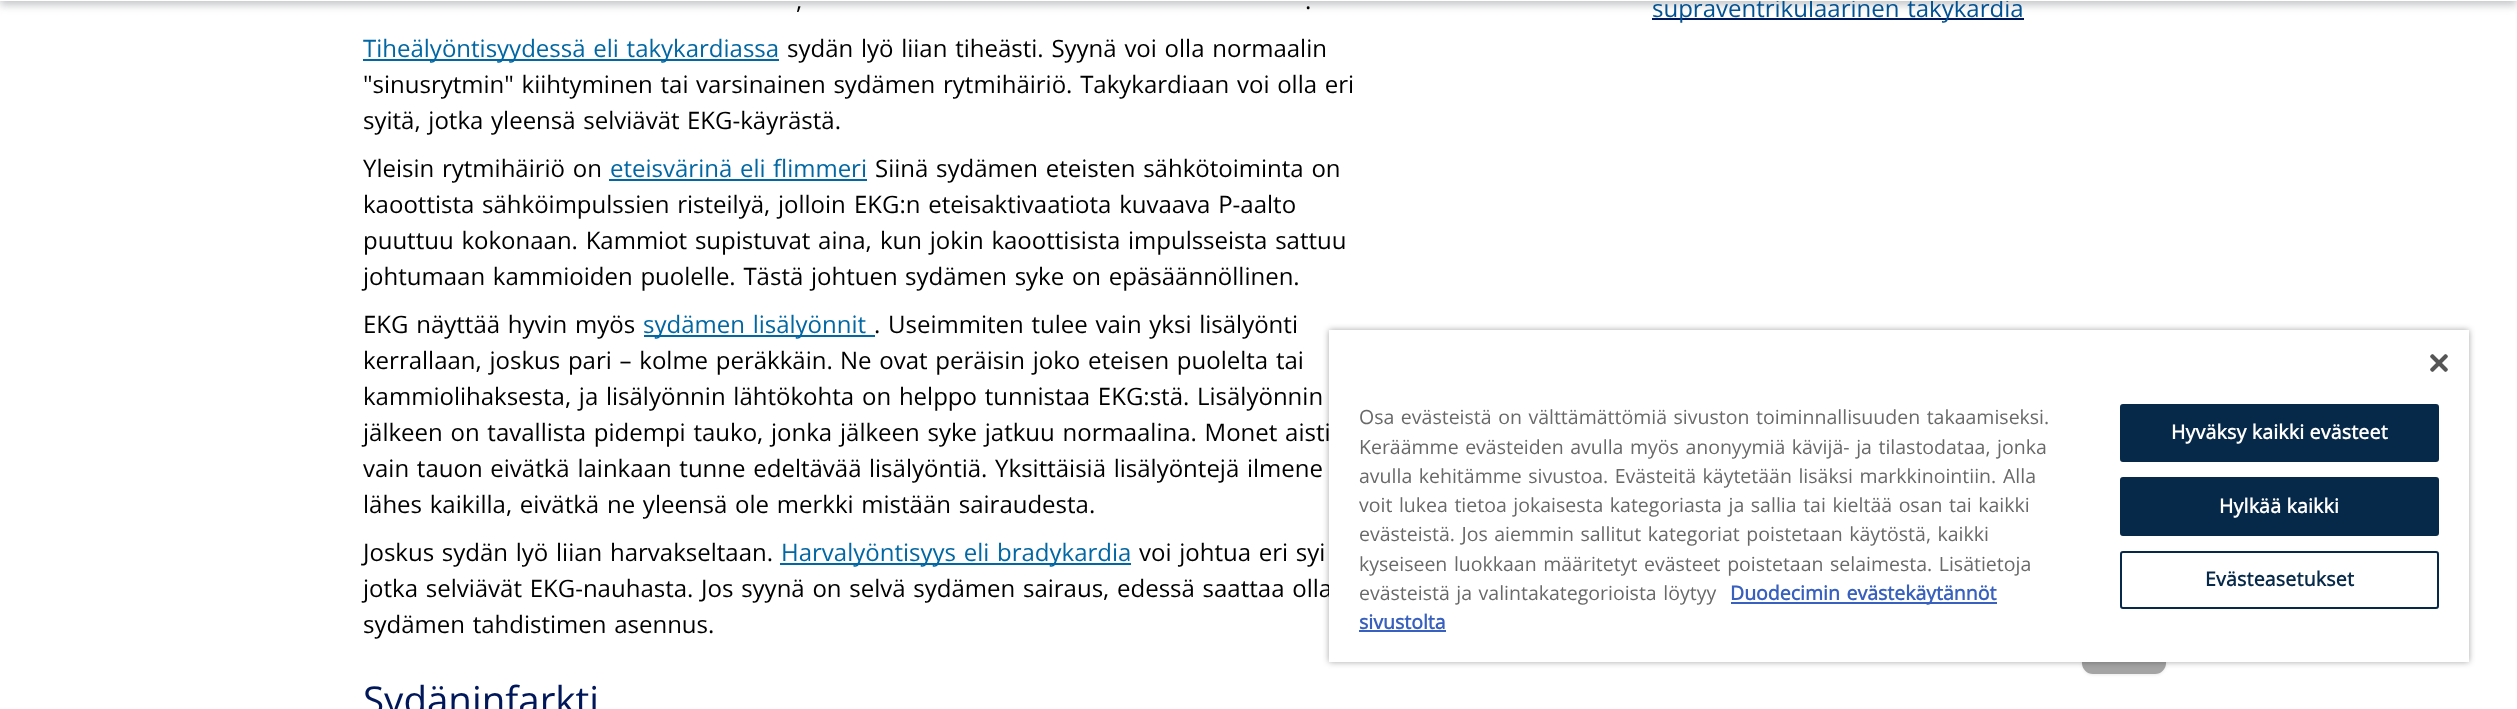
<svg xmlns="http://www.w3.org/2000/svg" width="2517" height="709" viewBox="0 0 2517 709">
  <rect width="100%" height="100%" fill="rgb(255,255,255)"/>
  <rect x="0" y="-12" width="2517" height="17" fill="rgba(57,63,72,0.3)" filter="blur(4px)"/>
  <rect x="1652" y="18" width="372" height="2" fill="rgb(0,23,90)"/>
  <text x="1652" y="17" word-spacing="1.5" font-family="Open Sans" font-size="24" fill="rgb(0,82,147)">supraventrikulaarinen takykardia</text>
  <rect x="0" y="0" width="2517" height="1" fill="rgb(255,255,255)"/>
  <g font-family="Open Sans" font-size="24" fill="rgb(0,0,0)">
    <text x="796" y="9" word-spacing="1.5">,</text>
    <text x="1305" y="9" word-spacing="1.5">.</text>
  </g>
  <rect x="363" y="59" width="416" height="2" fill="rgb(0,103,164)"/>
  <text x="363" y="57" word-spacing="1.5" font-family="Open Sans" font-size="24" fill="rgb(0,103,164)">Tiheälyöntisyydessä eli takykardiassa</text>
  <g font-family="Open Sans" font-size="24" fill="rgb(0,0,0)">
    <text x="787" y="57" word-spacing="1.5">sydän lyö liian tiheästi. Syynä voi olla normaalin</text>
    <text x="363" y="93" word-spacing="1.5">"sinusrytmin" kiihtyminen tai</text>
    <text x="696" y="93" word-spacing="1.5">varsinainen sydämen rytmihäiriö. Takykardiaan voi olla eri</text>
    <text x="363" y="129" word-spacing="1.5">syitä, jotka yleensä selviävät</text>
    <text x="687" y="129">EKG-käyrästä.</text>
    <text x="363" y="177" word-spacing="1.5">Yleisin rytmihäiriö on</text>
  </g>
  <text x="610" y="177" word-spacing="1.5" font-family="Open Sans" font-size="24" fill="rgb(0,103,164)">eteisvärinä eli</text>
  <rect x="609" y="179" width="258" height="2" fill="rgb(0,103,164)"/>
  <text x="773" y="177" font-family="Open Sans" font-size="24" fill="rgb(0,103,164)">flimmeri</text>
  <g font-family="Open Sans" font-size="24" fill="rgb(0,0,0)">
    <text x="875" y="177" word-spacing="1.5">Siinä sydämen eteisten sähkötoiminta on</text>
    <text x="363" y="213" word-spacing="1.5">kaoottista sähköimpulssien risteilyä, jolloin</text>
    <text x="854" y="213" word-spacing="1.5">EKG:n eteisaktivaatiota kuvaava P-aalto</text>
    <text x="363" y="249" word-spacing="1.5">puuttuu kokonaan. Kammiot supistuvat aina,</text>
    <text x="880" y="249" word-spacing="1.5">kun jokin kaoottisista impulsseista sattuu</text>
    <text x="363" y="285" word-spacing="1.5">johtumaan kammioiden puolelle. Tästä johtuen</text>
    <text x="905" y="285" word-spacing="1.5">sydämen syke on epäsäännöllinen.</text>
    <text x="363" y="333" word-spacing="1.5">EKG näyttää hyvin myös</text>
  </g>
  <rect x="644" y="335" width="231" height="2" fill="rgb(0,103,164)"/>
  <text x="643" y="333" word-spacing="1.5" font-family="Open Sans" font-size="24" fill="rgb(0,103,164)">sydämen lisälyönnit</text>
  <g font-family="Open Sans" font-size="24" fill="rgb(0,0,0)">
    <text x="874" y="333" word-spacing="1.5">. Useimmiten tulee vain yksi lisälyönti</text>
    <text x="363" y="369" word-spacing="1.5">kerrallaan, joskus pari – kolme peräkkäin.</text>
    <text x="840" y="369" word-spacing="1.5">Ne ovat peräisin joko eteisen puolelta tai</text>
    <text x="363" y="405" word-spacing="1.5">kammiolihaksesta, ja lisälyönnin lähtökohta</text>
    <text x="862" y="405" word-spacing="1.5">on helppo tunnistaa EKG:stä. Lisälyönnin</text>
    <text x="363" y="441" word-spacing="1.5">jälkeen on tavallista pidempi tauko, jonka</text>
    <text x="840" y="441" word-spacing="1.5">jälkeen syke jatkuu normaalina. Monet aisti</text>
    <text x="363" y="477" word-spacing="1.5">vain tauon eivätkä lainkaan tunne edeltävää</text>
    <text x="869" y="477" word-spacing="1.5">lisälyöntiä. Yksittäisiä lisälyöntejä ilmene</text>
    <text x="363" y="513" word-spacing="1.5">lähes kaikilla, eivätkä ne yleensä ole merkki mistään sairaudesta.</text>
    <text x="363" y="561" word-spacing="1.5">Joskus sydän lyö liian harvakseltaan.</text>
  </g>
  <rect x="780" y="563" width="351" height="2" fill="rgb(0,103,164)"/>
  <text x="781" y="561" word-spacing="1.5" font-family="Open Sans" font-size="24" fill="rgb(0,103,164)">Harvalyöntisyys eli bradykardia</text>
  <g font-family="Open Sans" font-size="24" fill="rgb(0,0,0)">
    <text x="1139" y="561" word-spacing="1.5">voi johtua eri syi</text>
    <text x="363" y="597" word-spacing="1.5">jotka selviävät EKG-nauhasta. Jos syynä on selvä sydämen sairaus,</text>
    <text x="1117" y="597" word-spacing="1.5">edessä saattaa olla</text>
    <text x="363" y="633" word-spacing="1.5">sydämen tahdistimen asennus.</text>
  </g>
  <text x="363" y="714" font-family="Open Sans" font-size="38.5" fill="rgb(0,23,90)">Sydäninfarkti</text>
  <rect x="2082" y="591" width="84" height="84" rx="11" fill="rgba(51,51,51,0.1)" filter="blur(1.5px)"/>
  <rect x="2082" y="590" width="84" height="84" rx="11" fill="rgb(164,164,164)"/>
  <rect x="1329" y="330" width="1140" height="332" fill="rgba(0,0,0,0.35)" filter="blur(3px)"/>
  <rect x="1329" y="330" width="1140" height="332" fill="rgb(255,255,255)"/>
  <image x="2430" y="354" width="18" height="18" href="pic1.png"/>
  <g font-family="Open Sans" font-size="19.5" fill="rgb(105,105,105)">
    <text>
      <tspan x="1359" y="424" word-spacing="1.5">Osa evästeistä on välttämättömiä sivuston toiminnallisuuden takaamiseksi.</tspan>
      <tspan x="1359" y="454" word-spacing="1.5">Keräämme evästeiden avulla myös anonyymiä kävijä- ja tilastodataa, jonka</tspan>
      <tspan x="1359" y="483" word-spacing="1.5">avulla kehitämme sivustoa. Evästeitä käytetään lisäksi markkinointiin.</tspan>
    </text>
    <text x="2003" y="483">Alla</text>
    <text>
      <tspan x="1359" y="512" word-spacing="1.5">voit lukea tietoa jokaisesta kategoriasta ja sallia tai kieltää osan tai kaikki</tspan>
      <tspan x="1359" y="541" word-spacing="1.5">evästeistä. Jos aiemmin sallitut kategoriat poistetaan käytöstä, kaikki</tspan>
      <tspan x="1359" y="571" word-spacing="1.5">kyseiseen luokkaan määritetyt evästeet poistetaan selaimesta. Lisätietoja</tspan>
      <tspan x="1359" y="600" word-spacing="1.5">evästeistä ja valintakategorioista löytyy</tspan>
    </text>
  </g>
  <rect x="1731" y="602" width="266" height="2" fill="rgb(56,96,190)"/>
  <g font-family="Open Sans" font-size="19.5" font-weight="bold" fill="rgb(56,96,190)">
    <text x="1730" y="600" word-spacing="1.5">Duodecimin evästekäytännöt</text>
    <text x="1359" y="629">sivustolta</text>
  </g>
  <rect x="1359" y="630" width="87" height="2" fill="rgb(56,96,190)"/>
  <rect x="2121" y="405" width="317" height="56" rx="2" fill="rgb(6,41,73)" stroke="rgb(6,41,73)" stroke-width="2"/>
  <text x="2171" y="439" font-family="Open Sans" font-size="19.5" font-weight="bold" letter-spacing="0.2" fill="rgb(255,255,255)">Hyväksy kaikki evästeet</text>
  <rect x="2121" y="478" width="317" height="57" rx="2" fill="rgb(6,41,73)" stroke="rgb(6,41,73)" stroke-width="2"/>
  <text x="2219" y="513" font-family="Open Sans" font-size="19.5" font-weight="bold" letter-spacing="0.2" fill="rgb(255,255,255)">Hylkää kaikki</text>
  <rect x="2121" y="552" width="317" height="56" rx="2" fill="none" stroke="rgb(6,41,73)" stroke-width="2"/>
  <text x="2205" y="586" font-family="Open Sans" font-size="19.5" font-weight="bold" letter-spacing="0.2" fill="rgb(6,41,73)">Evästeasetukset</text>
</svg>
